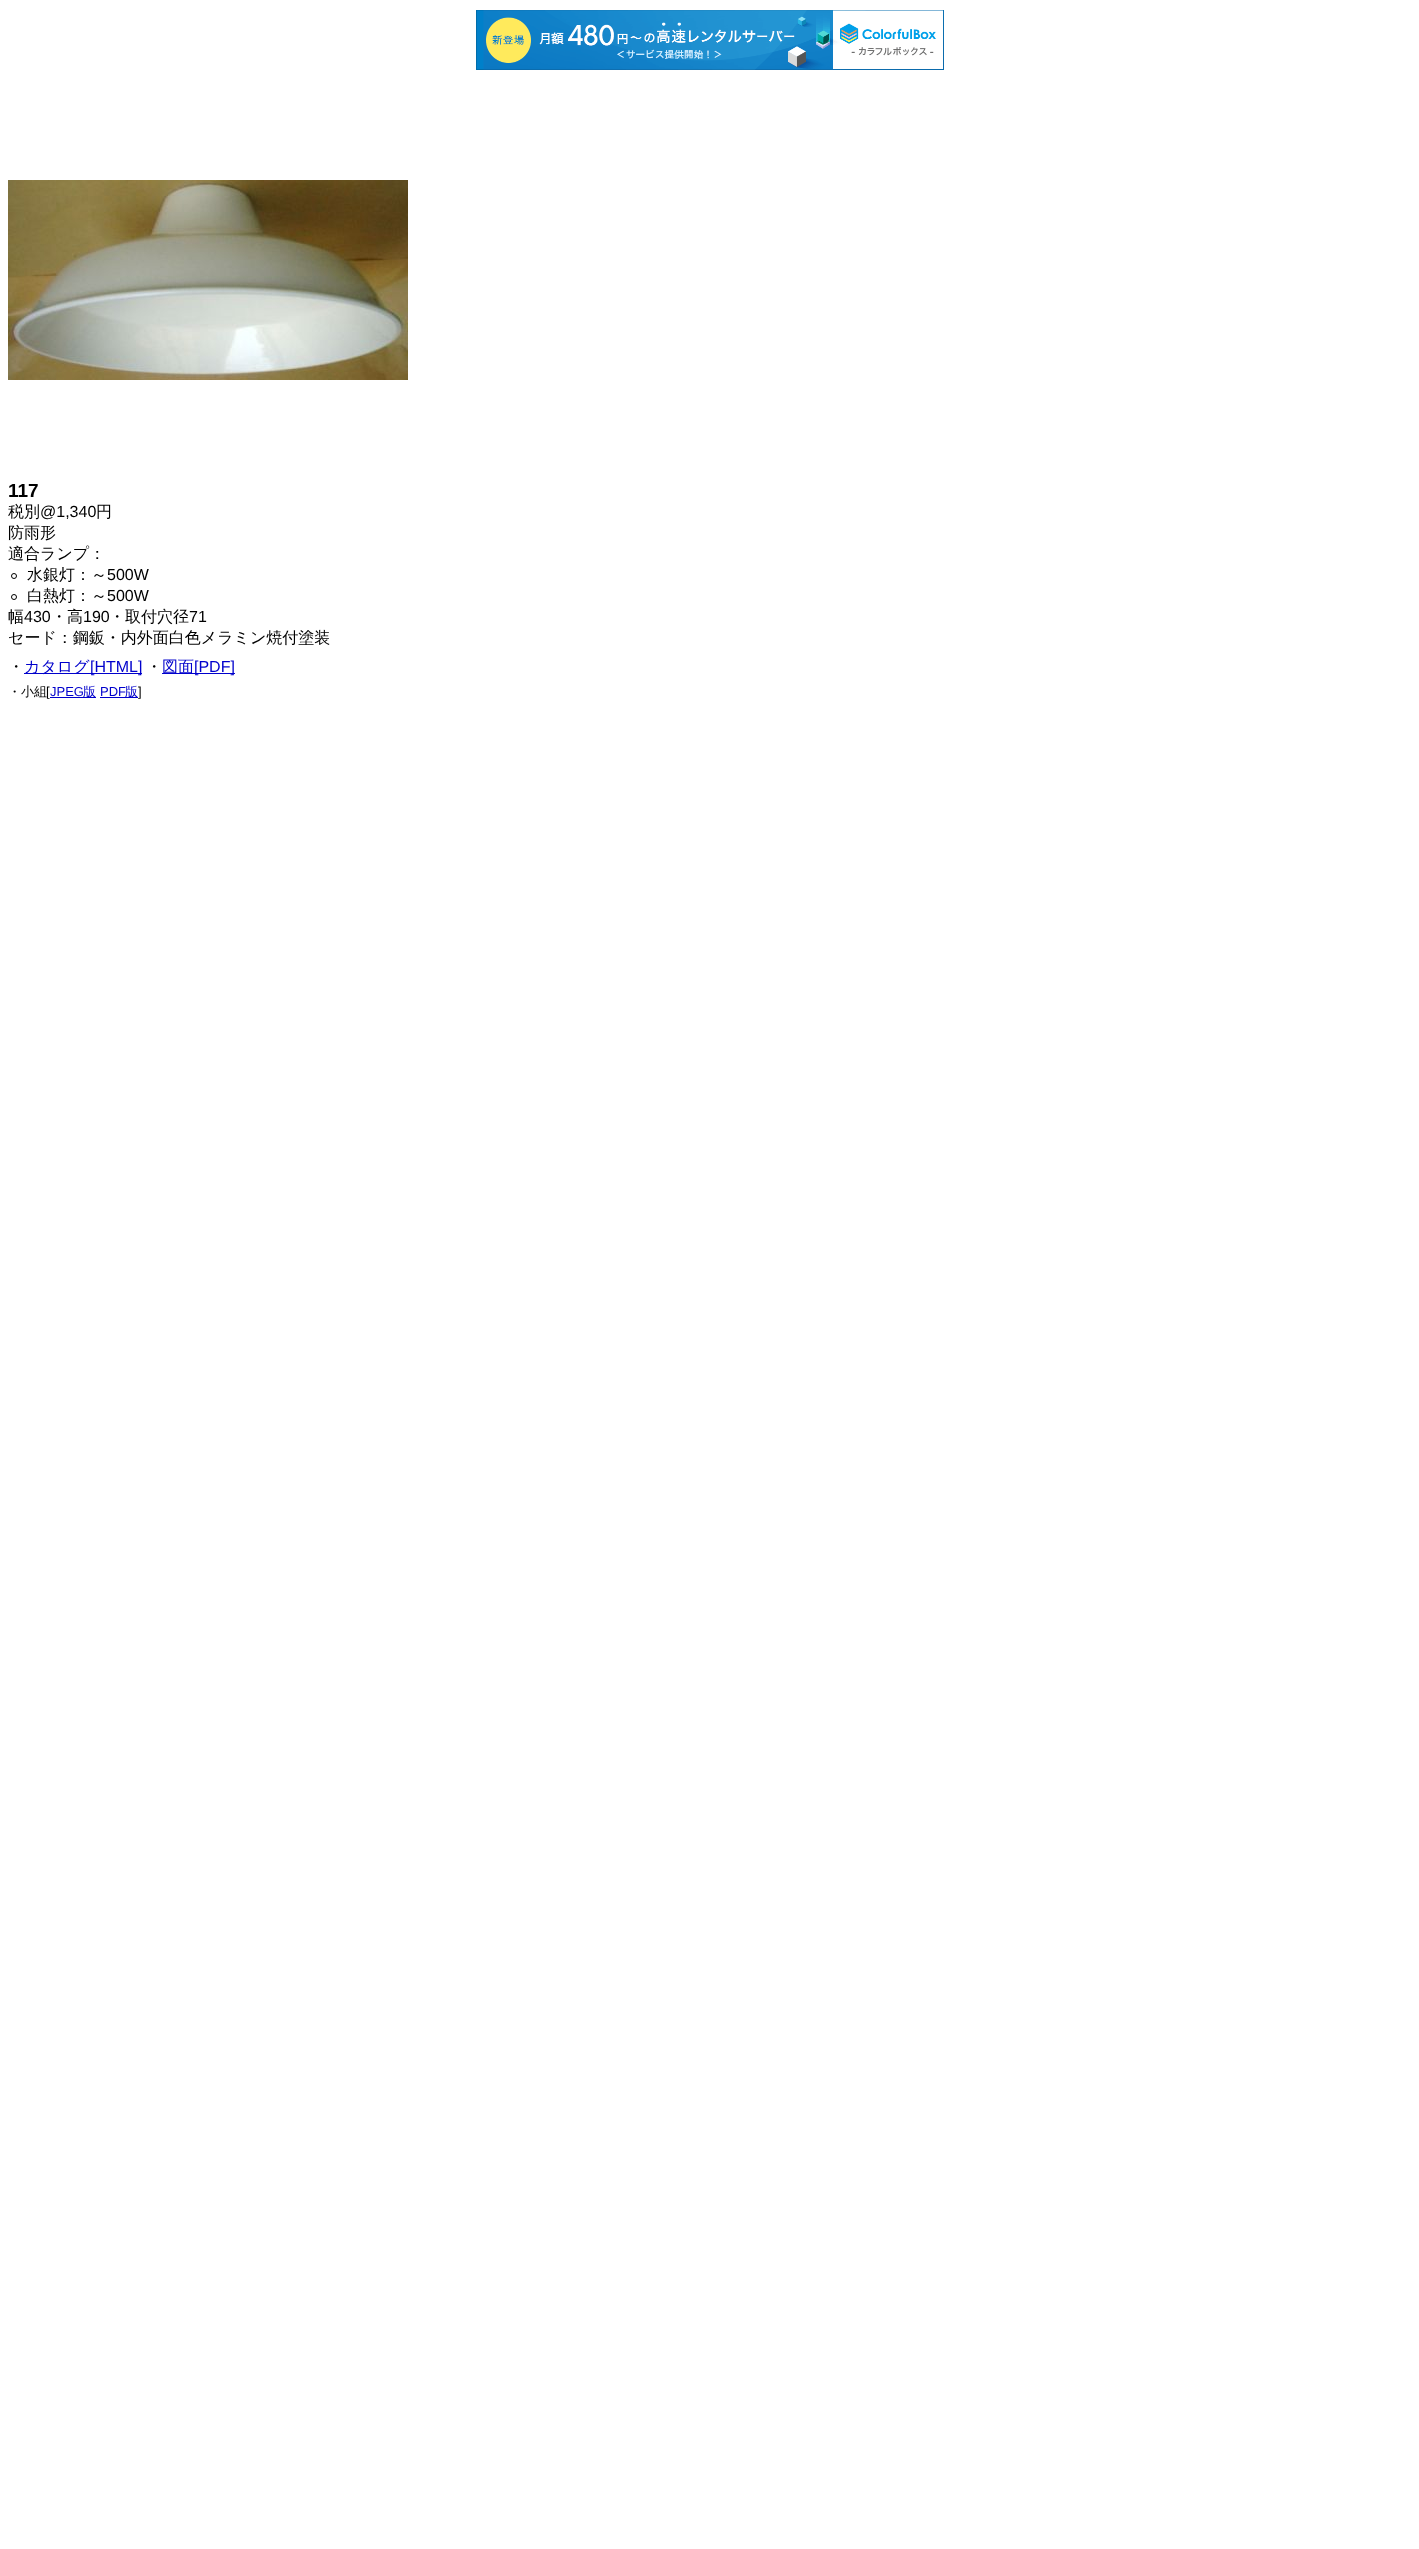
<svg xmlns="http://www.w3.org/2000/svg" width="1419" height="2549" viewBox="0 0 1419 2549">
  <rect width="100%" height="100%" fill="rgb(255,255,255)"/>
  <image x="476" y="10" width="468" height="60" href="pic1.png"/>
  <image x="8" y="180" width="400" height="200" href="pic2.png"/>
  <text x="8" y="497" font-family="Liberation Sans" font-size="19" font-weight="bold" fill="rgb(0,0,0)">117</text>
  <text x="8" y="517" font-family="WenQuanYi Zen Hei" font-size="16" font-weight="500" fill="rgb(0,0,0)">税別</text>
  <text x="40" y="517" font-family="Liberation Sans" font-size="16" fill="rgb(0,0,0)">@1,340</text>
  <g font-family="WenQuanYi Zen Hei" font-size="16" font-weight="500" fill="rgb(0,0,0)">
    <text x="96" y="517">円</text>
    <text>
      <tspan x="8" y="538">防雨形</tspan>
      <tspan x="8" y="559">適合ランプ：</tspan>
    </text>
  </g>
  <circle cx="14" cy="576" r="2.5" fill="none" stroke="rgb(0,0,0)"/>
  <text x="27" y="580" font-family="WenQuanYi Zen Hei" font-size="16" font-weight="500" fill="rgb(0,0,0)">水銀灯：～</text>
  <text x="107" y="580" font-family="Liberation Sans" font-size="16" fill="rgb(0,0,0)">500W</text>
  <circle cx="14" cy="597" r="2.5" fill="none" stroke="rgb(0,0,0)"/>
  <text x="27" y="601" font-family="WenQuanYi Zen Hei" font-size="16" font-weight="500" fill="rgb(0,0,0)">白熱灯：～</text>
  <text x="107" y="601" font-family="Liberation Sans" font-size="16" fill="rgb(0,0,0)">500W</text>
  <text x="8" y="622" font-family="WenQuanYi Zen Hei" font-size="16" font-weight="500" fill="rgb(0,0,0)">幅</text>
  <text x="24" y="622" font-family="Liberation Sans" font-size="16" fill="rgb(0,0,0)">430</text>
  <text x="51" y="622" font-family="WenQuanYi Zen Hei" font-size="16" font-weight="500" fill="rgb(0,0,0)">・高</text>
  <text x="83" y="622" font-family="Liberation Sans" font-size="16" fill="rgb(0,0,0)">190</text>
  <text x="109" y="622" font-family="WenQuanYi Zen Hei" font-size="16" font-weight="500" fill="rgb(0,0,0)">・取付穴径</text>
  <text x="189" y="622" font-family="Liberation Sans" font-size="16" fill="rgb(0,0,0)">71</text>
  <g font-family="WenQuanYi Zen Hei" font-size="16" font-weight="500" fill="rgb(0,0,0)">
    <text>
      <tspan x="8" y="643">セード：鋼鈑・内外面白色メラミン焼付塗装</tspan>
      <tspan x="8" y="672">・</tspan>
    </text>
  </g>
  <rect x="24" y="673" width="118" height="1" fill="rgb(0,0,204)"/>
  <text x="24" y="672" font-family="WenQuanYi Zen Hei" font-size="16" font-weight="500" fill="rgb(0,0,204)">カタログ</text>
  <text x="90" y="672" font-family="Liberation Sans" font-size="16" fill="rgb(0,0,204)">[HTML]</text>
  <text x="146" y="672" font-family="WenQuanYi Zen Hei" font-size="16" font-weight="500" fill="rgb(0,0,0)">・</text>
  <rect x="162" y="673" width="73" height="1" fill="rgb(0,0,204)"/>
  <text x="162" y="672" font-family="WenQuanYi Zen Hei" font-size="16" font-weight="500" fill="rgb(0,0,204)">図面</text>
  <text x="194" y="672" font-family="Liberation Sans" font-size="16" fill="rgb(0,0,204)">[PDF]</text>
  <text x="8" y="696" font-family="WenQuanYi Zen Hei" font-size="13" font-weight="500" fill="rgb(0,0,0)">・小組</text>
  <text x="46" y="696" font-family="Liberation Sans" font-size="13" fill="rgb(0,0,0)">[</text>
  <text x="50" y="696" font-family="Liberation Sans" font-size="13" fill="rgb(0,0,204)">JPEG</text>
  <rect x="50" y="697" width="46" height="1" fill="rgb(0,0,204)"/>
  <text x="83" y="696" font-family="WenQuanYi Zen Hei" font-size="13" font-weight="500" fill="rgb(0,0,204)">版</text>
  <text x="100" y="696" font-family="Liberation Sans" font-size="13" fill="rgb(0,0,204)">PDF</text>
  <rect x="100" y="697" width="38" height="1" fill="rgb(0,0,204)"/>
  <text x="125" y="696" font-family="WenQuanYi Zen Hei" font-size="13" font-weight="500" fill="rgb(0,0,204)">版</text>
  <text x="138" y="696" font-family="Liberation Sans" font-size="13" fill="rgb(0,0,0)">]</text>
</svg>
